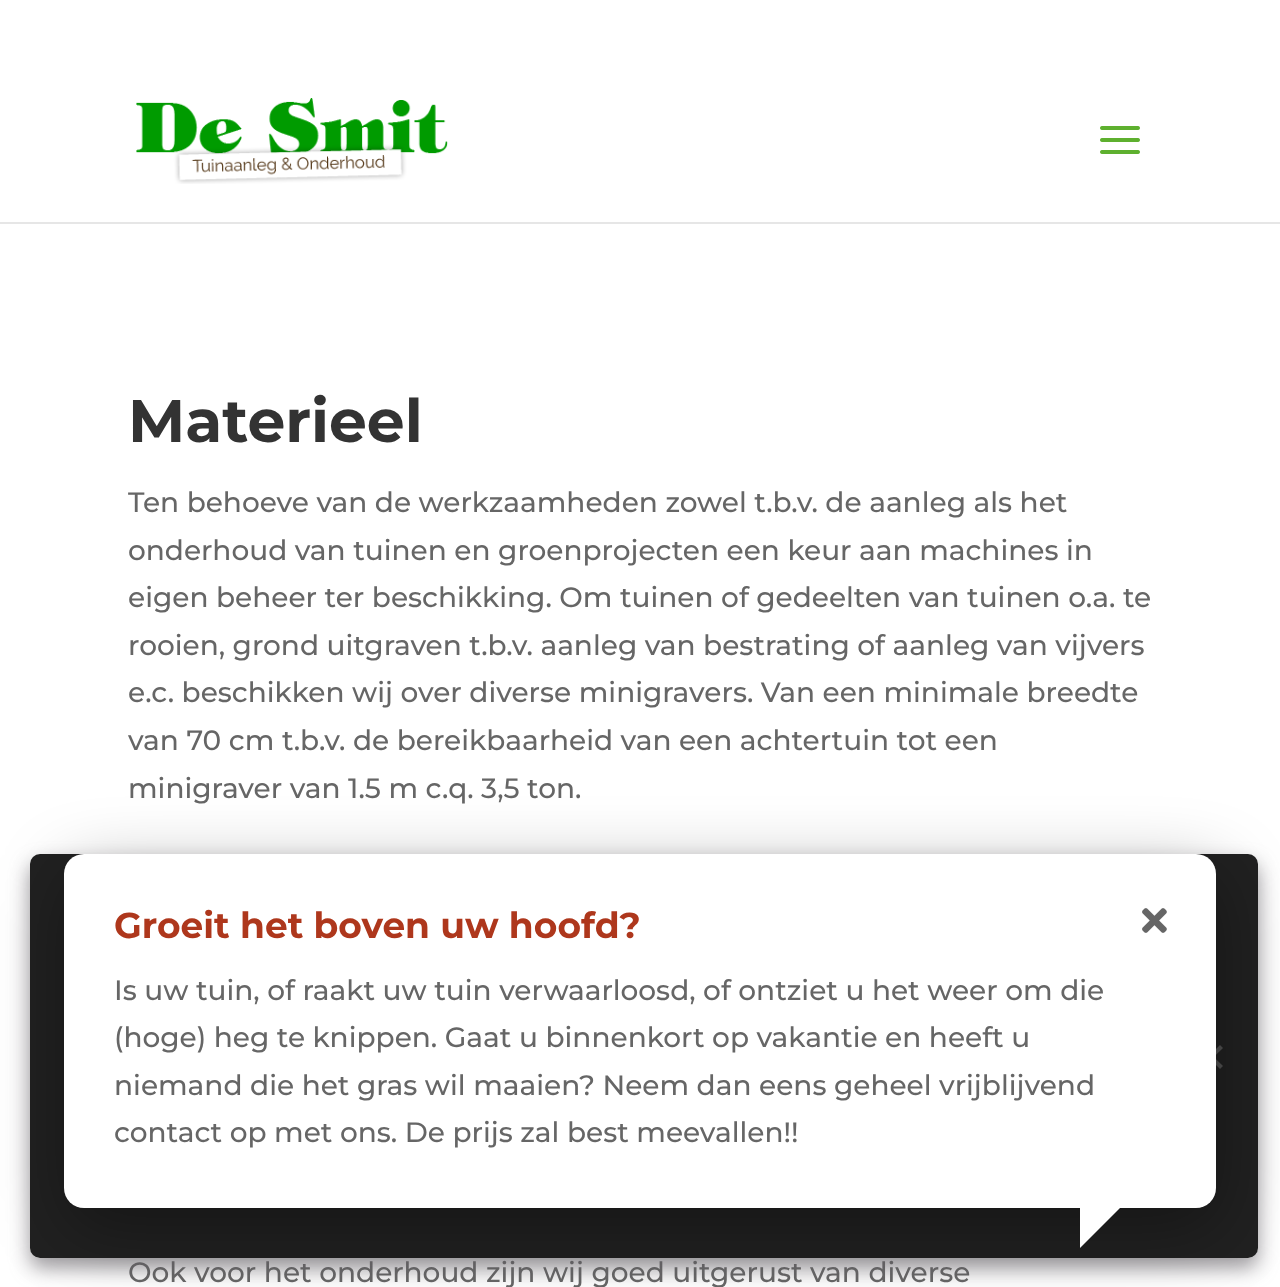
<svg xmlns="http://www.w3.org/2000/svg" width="1280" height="1287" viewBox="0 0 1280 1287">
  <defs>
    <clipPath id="clip1"><path d="M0 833H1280V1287H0ZM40 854H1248C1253.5 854 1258 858.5 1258 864V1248C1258 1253.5 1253.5 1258 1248 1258H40C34.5 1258 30 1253.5 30 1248V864C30 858.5 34.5 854 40 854Z" clip-rule="evenodd"/></clipPath>
  </defs>
  <rect width="100%" height="100%" fill="rgb(255,255,255)"/>
  <rect x="0" y="222" width="1280" height="2" fill="rgb(230,230,230)"/>
  <image x="136" y="98" width="312" height="86" href="pic1.png"/>
  <image x="1100" y="126" width="40" height="28" href="pic2.png"/>
  <text x="128" y="442" font-family="Montserrat" font-size="60" font-weight="100" fill="rgb(51,51,51)">Materieel</text>
  <g font-family="'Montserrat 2'" font-size="28" font-weight="100" fill="rgb(102,102,102)">
    <text>
      <tspan x="128" y="512">Ten behoeve van de werkzaamheden zowel t.b.v. de aanleg als het</tspan>
      <tspan x="128" y="560">onderhoud van tuinen en groenprojecten een keur aan machines in</tspan>
      <tspan x="128" y="607">eigen beheer ter beschikking. Om tuinen of gedeelten van tuinen o.a. te</tspan>
      <tspan x="128" y="655">rooien, grond uitgraven t.b.v. aanleg van bestrating of aanleg van vijvers</tspan>
      <tspan x="128" y="702">e.c. beschikken wij over diverse minigravers. Van een minimale breedte</tspan>
      <tspan x="128" y="750">van 70 cm t.b.v. de bereikbaarheid van een achtertuin tot een</tspan>
      <tspan x="128" y="798">minigraver van 1.5 m c.q. 3,5 ton.</tspan>
    </text>
    <text x="128" y="1282">Ook voor het onderhoud zijn wij goed uitgerust van diverse</text>
  </g>
  <g clip-path="url(#clip1)">
    <rect x="30" y="864" width="1228" height="404" rx="10" fill="rgba(107,103,109,0.65)" filter="blur(10px)"/>
  </g>
  <rect x="30" y="854" width="1228" height="404" rx="10" fill="rgba(0,0,0,0.87)"/>
  <path d="M1220 1045L1223 1048L1201.5 1069L1199 1066Z" fill="rgb(81,81,81)"/>
  <path d="M1199 1048L1201.5 1045L1223 1066L1220 1069Z" fill="rgb(81,81,81)"/>
  <rect x="68" y="874" width="1152" height="354" rx="20" fill="rgba(0,0,0,0.35)" filter="blur(35px)"/>
  <rect x="64" y="854" width="1152" height="354" rx="20" fill="rgb(255,255,255)"/>
  <text x="114" y="938" font-family="Montserrat" font-size="36" font-weight="100" fill="rgb(174,55,28)">Groeit het boven uw hoofd?</text>
  <g font-family="'Montserrat 2'" font-size="28" font-weight="100" fill="rgb(102,102,102)">
    <text>
      <tspan x="114" y="1000">Is uw tuin, of raakt uw tuin verwaarloosd, of ontziet u het weer om die</tspan>
      <tspan x="114" y="1047">(hoge) heg te knippen. Gaat u binnenkort op vakantie en heeft u</tspan>
      <tspan x="114" y="1095">niemand die het gras wil maaien? Neem dan eens geheel vrijblijvend</tspan>
      <tspan x="114" y="1142">contact op met ons. De prijs zal best meevallen!!</tspan>
    </text>
  </g>
  <image x="1142" y="908" width="25" height="25" href="pic3.png"/>
  <path d="M1080 1208H1120L1080 1248Z" fill="rgb(255,255,255)"/>
</svg>
